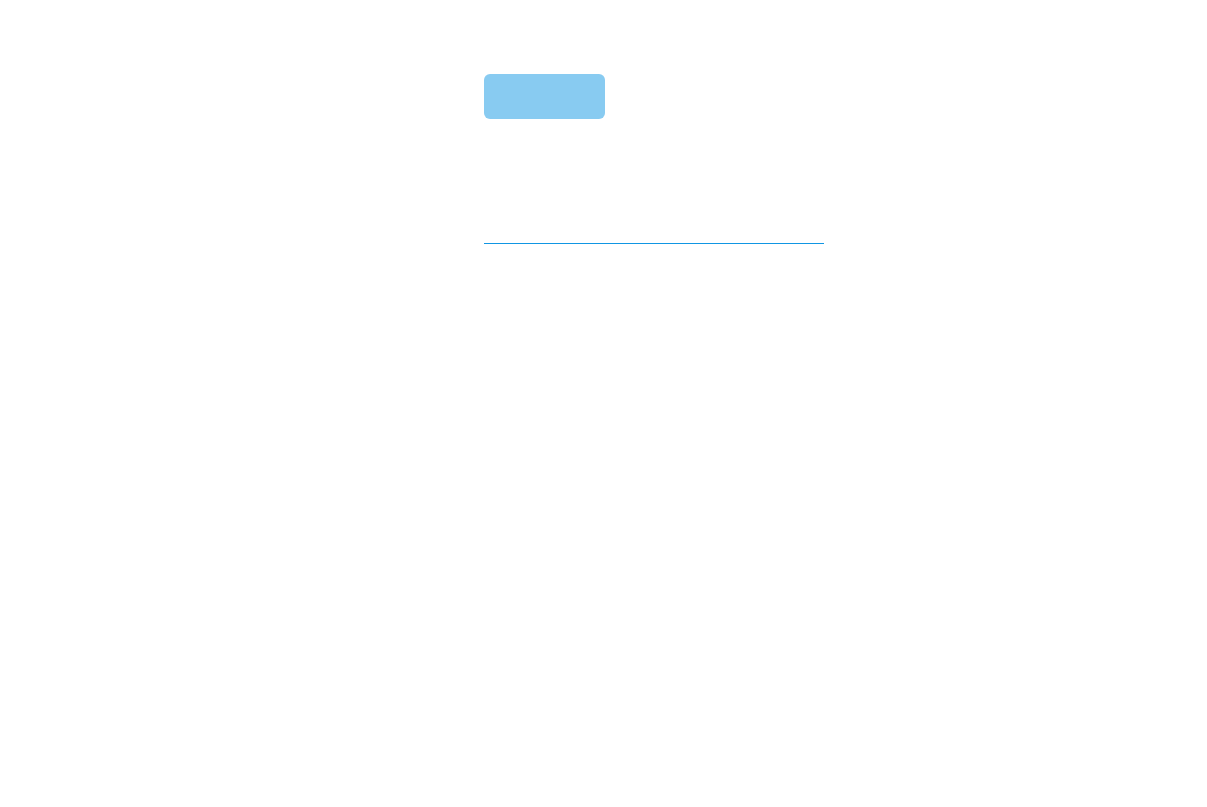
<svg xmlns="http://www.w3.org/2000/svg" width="1207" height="807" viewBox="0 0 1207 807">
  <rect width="100%" height="100%" fill="rgb(255,255,255)"/>
  <rect x="484" y="74" width="121" height="45" rx="6" fill="rgb(136,203,241)"/>
  <rect x="484" y="243" width="340" height="1" fill="rgb(17,150,227)"/>
</svg>
